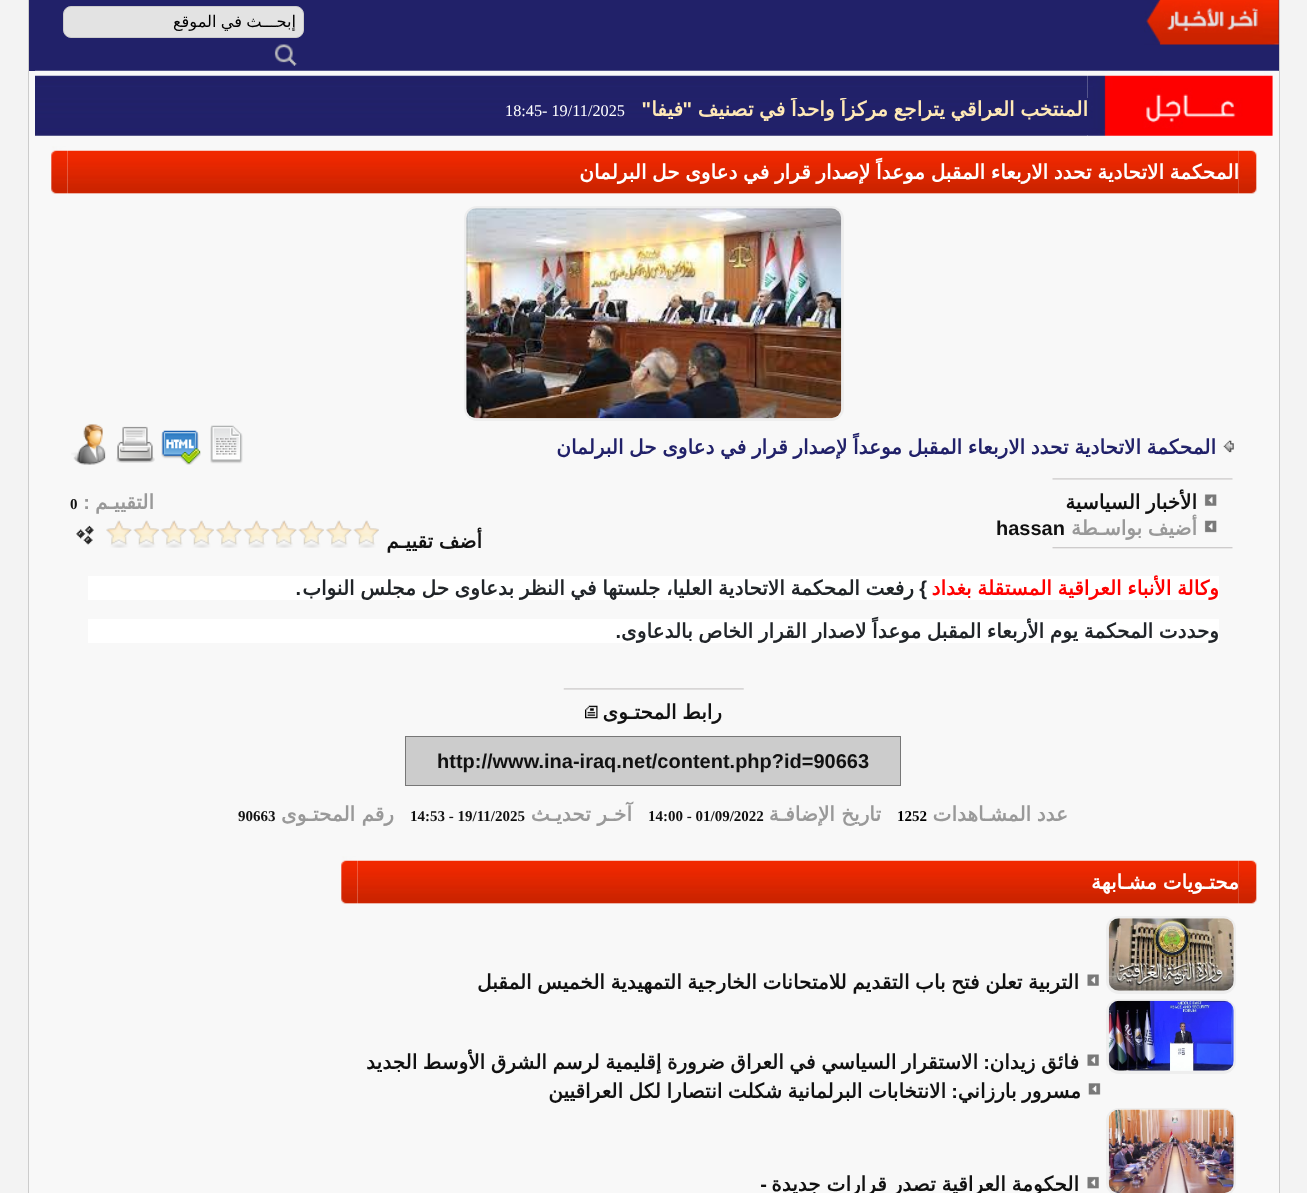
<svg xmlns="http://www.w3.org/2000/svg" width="1307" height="1193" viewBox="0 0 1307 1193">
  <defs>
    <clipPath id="clip1"><rect x="70" y="13" width="226" height="20"/></clipPath>
    <clipPath id="clip2"><rect x="56" y="98" width="1032" height="37"/></clipPath>
  </defs>
  <rect width="100%" height="100%" fill="rgb(243,243,243)"/>
  <rect x="29" y="71" width="1250" height="1122" fill="rgb(248,248,248)"/>
  <rect x="1279" y="0" width="1" height="1193" fill="rgb(204,204,204)"/>
  <rect x="28" y="0" width="1" height="1193" fill="rgb(204,204,204)"/>
  <rect x="29" y="0" width="1250" height="71" fill="rgb(33,33,105)"/>
  <image x="1144" y="0" width="135" height="45" href="pic1.png"/>
  <rect x="63.5" y="6.5" width="240" height="31" rx="7.5" fill="rgb(227,227,227)" stroke="rgb(204,204,204)"/>
  <g clip-path="url(#clip1)">
    <text x="296" y="27" word-spacing="-1" font-family="DejaVu Sans" font-size="16.25" direction="rtl" fill="rgb(0,0,0)">إبحـــث في الموقع</text>
  </g>
  <image x="274" y="44" width="23" height="22" href="pic2.png"/>
  <image x="1087" y="70" width="192" height="66" href="pic3.png"/>
  <image x="35" y="70" width="1053" height="66" href="pic4.png"/>
  <rect x="1087" y="98" width="1" height="37" fill="rgb(33,33,105)"/>
  <g clip-path="url(#clip2)">
    <text x="1088" y="116" word-spacing="-0.75" font-family="DejaVu Sans" font-size="20" font-weight="bold" direction="rtl" fill="rgb(255,233,183)">المنتخب العراقي يتراجع مركزاً واحداً في تصنيف</text>
  </g>
  <text x="692" y="116" font-family="Liberation Sans" font-size="20" font-weight="bold" direction="rtl" fill="rgb(255,233,183)">"</text>
  <text x="683" y="116" font-family="DejaVu Sans" font-size="20" font-weight="bold" direction="rtl" fill="rgb(255,233,183)">فيفا</text>
  <text x="651" y="116" font-family="Liberation Sans" font-size="20" font-weight="bold" direction="rtl" fill="rgb(255,233,183)">"</text>
  <text x="505" y="116" font-family="Liberation Serif" font-size="16.25" fill="rgb(255,255,255)">18:45- 19/11/2025</text>
  <image x="67" y="150" width="1172" height="44" href="pic6.png"/>
  <image x="1238" y="150" width="19" height="44" href="pic5.png"/>
  <text x="1239" y="179" word-spacing="-0.75" font-family="DejaVu Sans" font-size="20" font-weight="bold" direction="rtl" fill="rgb(255,255,255)">المحكمة الاتحادية تحدد الاربعاء المقبل موعداً لإصدار قرار في دعاوى حل البرلمان</text>
  <image x="51" y="146" width="17" height="48" href="pic7.png"/>
  <rect x="465.5" y="207.5" width="377" height="212" rx="11.5" fill="none" stroke="rgb(238,238,238)" stroke-width="3"/>
  <image x="466" y="208" width="376" height="211" href="pic8.png"/>
  <image x="1223" y="440" width="11" height="13" href="pic9.png"/>
  <text x="1216" y="454" word-spacing="-0.75" font-family="DejaVu Sans" font-size="20" font-weight="bold" direction="rtl" fill="rgb(33,33,105)">المحكمة الاتحادية تحدد الاربعاء المقبل موعداً لإصدار قرار في دعاوى حل البرلمان</text>
  <image x="210" y="425" width="33" height="39" href="pic10.png"/>
  <image x="161" y="430" width="40" height="35" href="pic11.png"/>
  <image x="116" y="426" width="39" height="37" href="pic12.png"/>
  <image x="71" y="424" width="35" height="41" href="pic13.png"/>
  <image x="1052" y="478" width="181" height="2" href="pic14.png"/>
  <image x="1204" y="494" width="13" height="12" href="pic15.png"/>
  <text x="1197" y="509" word-spacing="-0.75" font-family="DejaVu Sans" font-size="20" font-weight="bold" direction="rtl" fill="rgb(17,17,17)">الأخبار السياسية</text>
  <text x="154" y="509" font-family="DejaVu Sans" font-size="20" font-weight="bold" direction="rtl" fill="rgb(153,153,153)">التقييـم</text>
  <text x="90" y="509" font-family="Liberation Sans" font-size="20" font-weight="bold" direction="rtl" fill="rgb(153,153,153)">:</text>
  <text x="70" y="509" font-family="Liberation Serif" font-size="15" font-weight="bold" fill="rgb(17,17,17)">0</text>
  <image x="1204" y="520" width="13" height="13" href="pic16.png"/>
  <text x="1197" y="535" word-spacing="-0.75" font-family="DejaVu Sans" font-size="20" font-weight="bold" direction="rtl" fill="rgb(153,153,153)">أضيف بواسـطة</text>
  <text x="996" y="535" font-family="Liberation Sans" font-size="20" font-weight="bold" fill="rgb(17,17,17)">hassan</text>
  <text x="482" y="548" word-spacing="-0.75" font-family="DejaVu Sans" font-size="20" font-weight="bold" direction="rtl" fill="rgb(17,17,17)">أضف تقييـم</text>
  <image x="353" y="520" width="26" height="28" href="pic17.png"/>
  <image x="326" y="520" width="26" height="28" href="pic18.png"/>
  <image x="298" y="520" width="26" height="28" href="pic19.png"/>
  <image x="271" y="520" width="26" height="28" href="pic20.png"/>
  <image x="243" y="520" width="26" height="28" href="pic21.png"/>
  <image x="216" y="520" width="26" height="28" href="pic18.png"/>
  <image x="188" y="520" width="26" height="28" href="pic19.png"/>
  <image x="161" y="520" width="26" height="28" href="pic18.png"/>
  <image x="133" y="520" width="26" height="28" href="pic19.png"/>
  <image x="106" y="520" width="26" height="28" href="pic18.png"/>
  <image x="76" y="525" width="18" height="20" href="pic22.png"/>
  <image x="1052" y="547" width="181" height="2" href="pic23.png"/>
  <rect x="88" y="576" width="1131" height="24" fill="rgb(255,255,255)"/>
  <text x="1219" y="595" word-spacing="-0.75" font-family="DejaVu Sans" font-size="20" font-weight="bold" direction="rtl" fill="rgb(255,0,0)">وكالة الأنباء العراقية المستقلة بغداد</text>
  <text x="914" y="595" word-spacing="-0.75" font-family="DejaVu Sans" font-size="20" font-weight="bold" direction="rtl" fill="rgb(33,37,41)">رفعت المحكمة الاتحادية العليا، جلستها في النظر بدعاوى حل مجلس النواب</text>
  <g font-family="Liberation Sans" font-size="20" font-weight="bold" direction="rtl" fill="rgb(33,37,41)">
    <text x="927" y="595">}</text>
    <text x="301" y="595">.</text>
  </g>
  <rect x="88" y="619" width="1131" height="24" fill="rgb(255,255,255)"/>
  <text x="1219" y="638" word-spacing="-0.75" font-family="DejaVu Sans" font-size="20" font-weight="bold" direction="rtl" fill="rgb(33,37,41)">وحددت المحكمة يوم الأربعاء المقبل موعداً لاصدار القرار الخاص بالدعاوى</text>
  <text x="621" y="638" font-family="Liberation Sans" font-size="20" font-weight="bold" direction="rtl" fill="rgb(33,37,41)">.</text>
  <image x="563" y="688" width="181" height="2" href="pic24.png"/>
  <text x="722" y="719" word-spacing="-0.75" font-family="DejaVu Sans" font-size="20" font-weight="bold" direction="rtl" fill="rgb(17,17,17)">رابط المحتـوى</text>
  <image x="585" y="705" width="13" height="14" href="pic25.png"/>
  <rect x="405.5" y="736.5" width="495" height="49" fill="rgb(204,204,204)" stroke="rgb(119,119,119)"/>
  <text x="437" y="768" font-family="Liberation Sans" font-size="20" font-weight="bold" fill="rgb(17,17,17)">http://www.ina-iraq.net/content.php?id=90663</text>
  <text x="1068" y="821" word-spacing="-0.75" font-family="DejaVu Sans" font-size="20" font-weight="bold" direction="rtl" fill="rgb(153,153,153)">عدد المشـاهدات</text>
  <text x="897" y="821" font-family="Liberation Serif" font-size="15" font-weight="bold" fill="rgb(0,0,0)">1252</text>
  <text x="881" y="821" font-family="DejaVu Sans" font-size="20" font-weight="bold" direction="rtl" fill="rgb(153,153,153)">تاريخ الإضافـة</text>
  <text x="648" y="821" font-family="Liberation Serif" font-size="15" font-weight="bold" fill="rgb(17,17,17)">14:00 - 01/09/2022</text>
  <text x="632" y="821" font-family="DejaVu Sans" font-size="20" font-weight="bold" direction="rtl" fill="rgb(153,153,153)">آخـر تحديـث</text>
  <text x="410" y="821" font-family="Liberation Serif" font-size="15" font-weight="bold" fill="rgb(17,17,17)">14:53 - 19/11/2025</text>
  <text x="394" y="821" font-family="DejaVu Sans" font-size="20" font-weight="bold" direction="rtl" fill="rgb(153,153,153)">رقم المحتـوى</text>
  <text x="238" y="821" font-family="Liberation Serif" font-size="15" font-weight="bold" fill="rgb(17,17,17)">90663</text>
  <image x="357" y="860" width="882" height="44" href="pic26.png"/>
  <image x="1238" y="860" width="19" height="44" href="pic5.png"/>
  <text x="1239" y="889" word-spacing="-0.75" font-family="DejaVu Sans" font-size="20" font-weight="bold" direction="rtl" fill="rgb(255,255,255)">محتـويات مشـابهة</text>
  <image x="341" y="856" width="17" height="48" href="pic7.png"/>
  <rect x="1107.5" y="917.5" width="127" height="75" rx="11.5" fill="none" stroke="rgb(238,238,238)" stroke-width="3"/>
  <image x="1108" y="918" width="126" height="73" href="pic27.png"/>
  <image x="1087" y="974" width="12" height="12" href="pic28.png"/>
  <text x="1079" y="989" word-spacing="-0.75" font-family="DejaVu Sans" font-size="20" font-weight="bold" direction="rtl" fill="rgb(17,17,17)">التربية تعلن فتح باب التقديم للامتحانات الخارجية التمهيدية الخميس المقبل</text>
  <rect x="1107.5" y="1000.5" width="127" height="72" rx="11.5" fill="none" stroke="rgb(238,238,238)" stroke-width="3"/>
  <image x="1108" y="1000" width="126" height="71" href="pic29.png"/>
  <image x="1087" y="1054" width="12" height="12" href="pic28.png"/>
  <text x="1079" y="1069" word-spacing="-0.75" font-family="DejaVu Sans" font-size="20" font-weight="bold" direction="rtl" fill="rgb(17,17,17)">فائق زيدان</text>
  <text x="990" y="1069" font-family="Liberation Sans" font-size="20" font-weight="bold" direction="rtl" fill="rgb(17,17,17)">:</text>
  <text x="978" y="1069" word-spacing="-0.75" font-family="DejaVu Sans" font-size="20" font-weight="bold" direction="rtl" fill="rgb(17,17,17)">الاستقرار السياسي في العراق ضرورة إقليمية لرسم الشرق الأوسط الجديد</text>
  <image x="1088" y="1083" width="13" height="12" href="pic30.png"/>
  <text x="1081" y="1098" word-spacing="-0.75" font-family="DejaVu Sans" font-size="20" font-weight="bold" direction="rtl" fill="rgb(17,17,17)">مسرور بارزاني</text>
  <text x="958" y="1098" font-family="Liberation Sans" font-size="20" font-weight="bold" direction="rtl" fill="rgb(17,17,17)">:</text>
  <text x="946" y="1098" word-spacing="-0.75" font-family="DejaVu Sans" font-size="20" font-weight="bold" direction="rtl" fill="rgb(17,17,17)">الانتخابات البرلمانية شكلت انتصارا لكل العراقيين</text>
  <rect x="1107.5" y="1109.5" width="127" height="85" rx="11.5" fill="none" stroke="rgb(238,238,238)" stroke-width="3"/>
  <image x="1108" y="1109" width="126" height="84" href="pic31.png"/>
  <image x="1087" y="1176" width="12" height="13" href="pic32.png"/>
  <text x="1079" y="1191" word-spacing="-0.5" font-family="DejaVu Sans" font-size="20" font-weight="bold" direction="rtl" fill="rgb(17,17,17)">الحكومة العراقية تصدر قرارات جديدة</text>
  <text x="767" y="1191" font-family="Liberation Sans" font-size="20" font-weight="bold" direction="rtl" fill="rgb(17,17,17)">-</text>
</svg>
